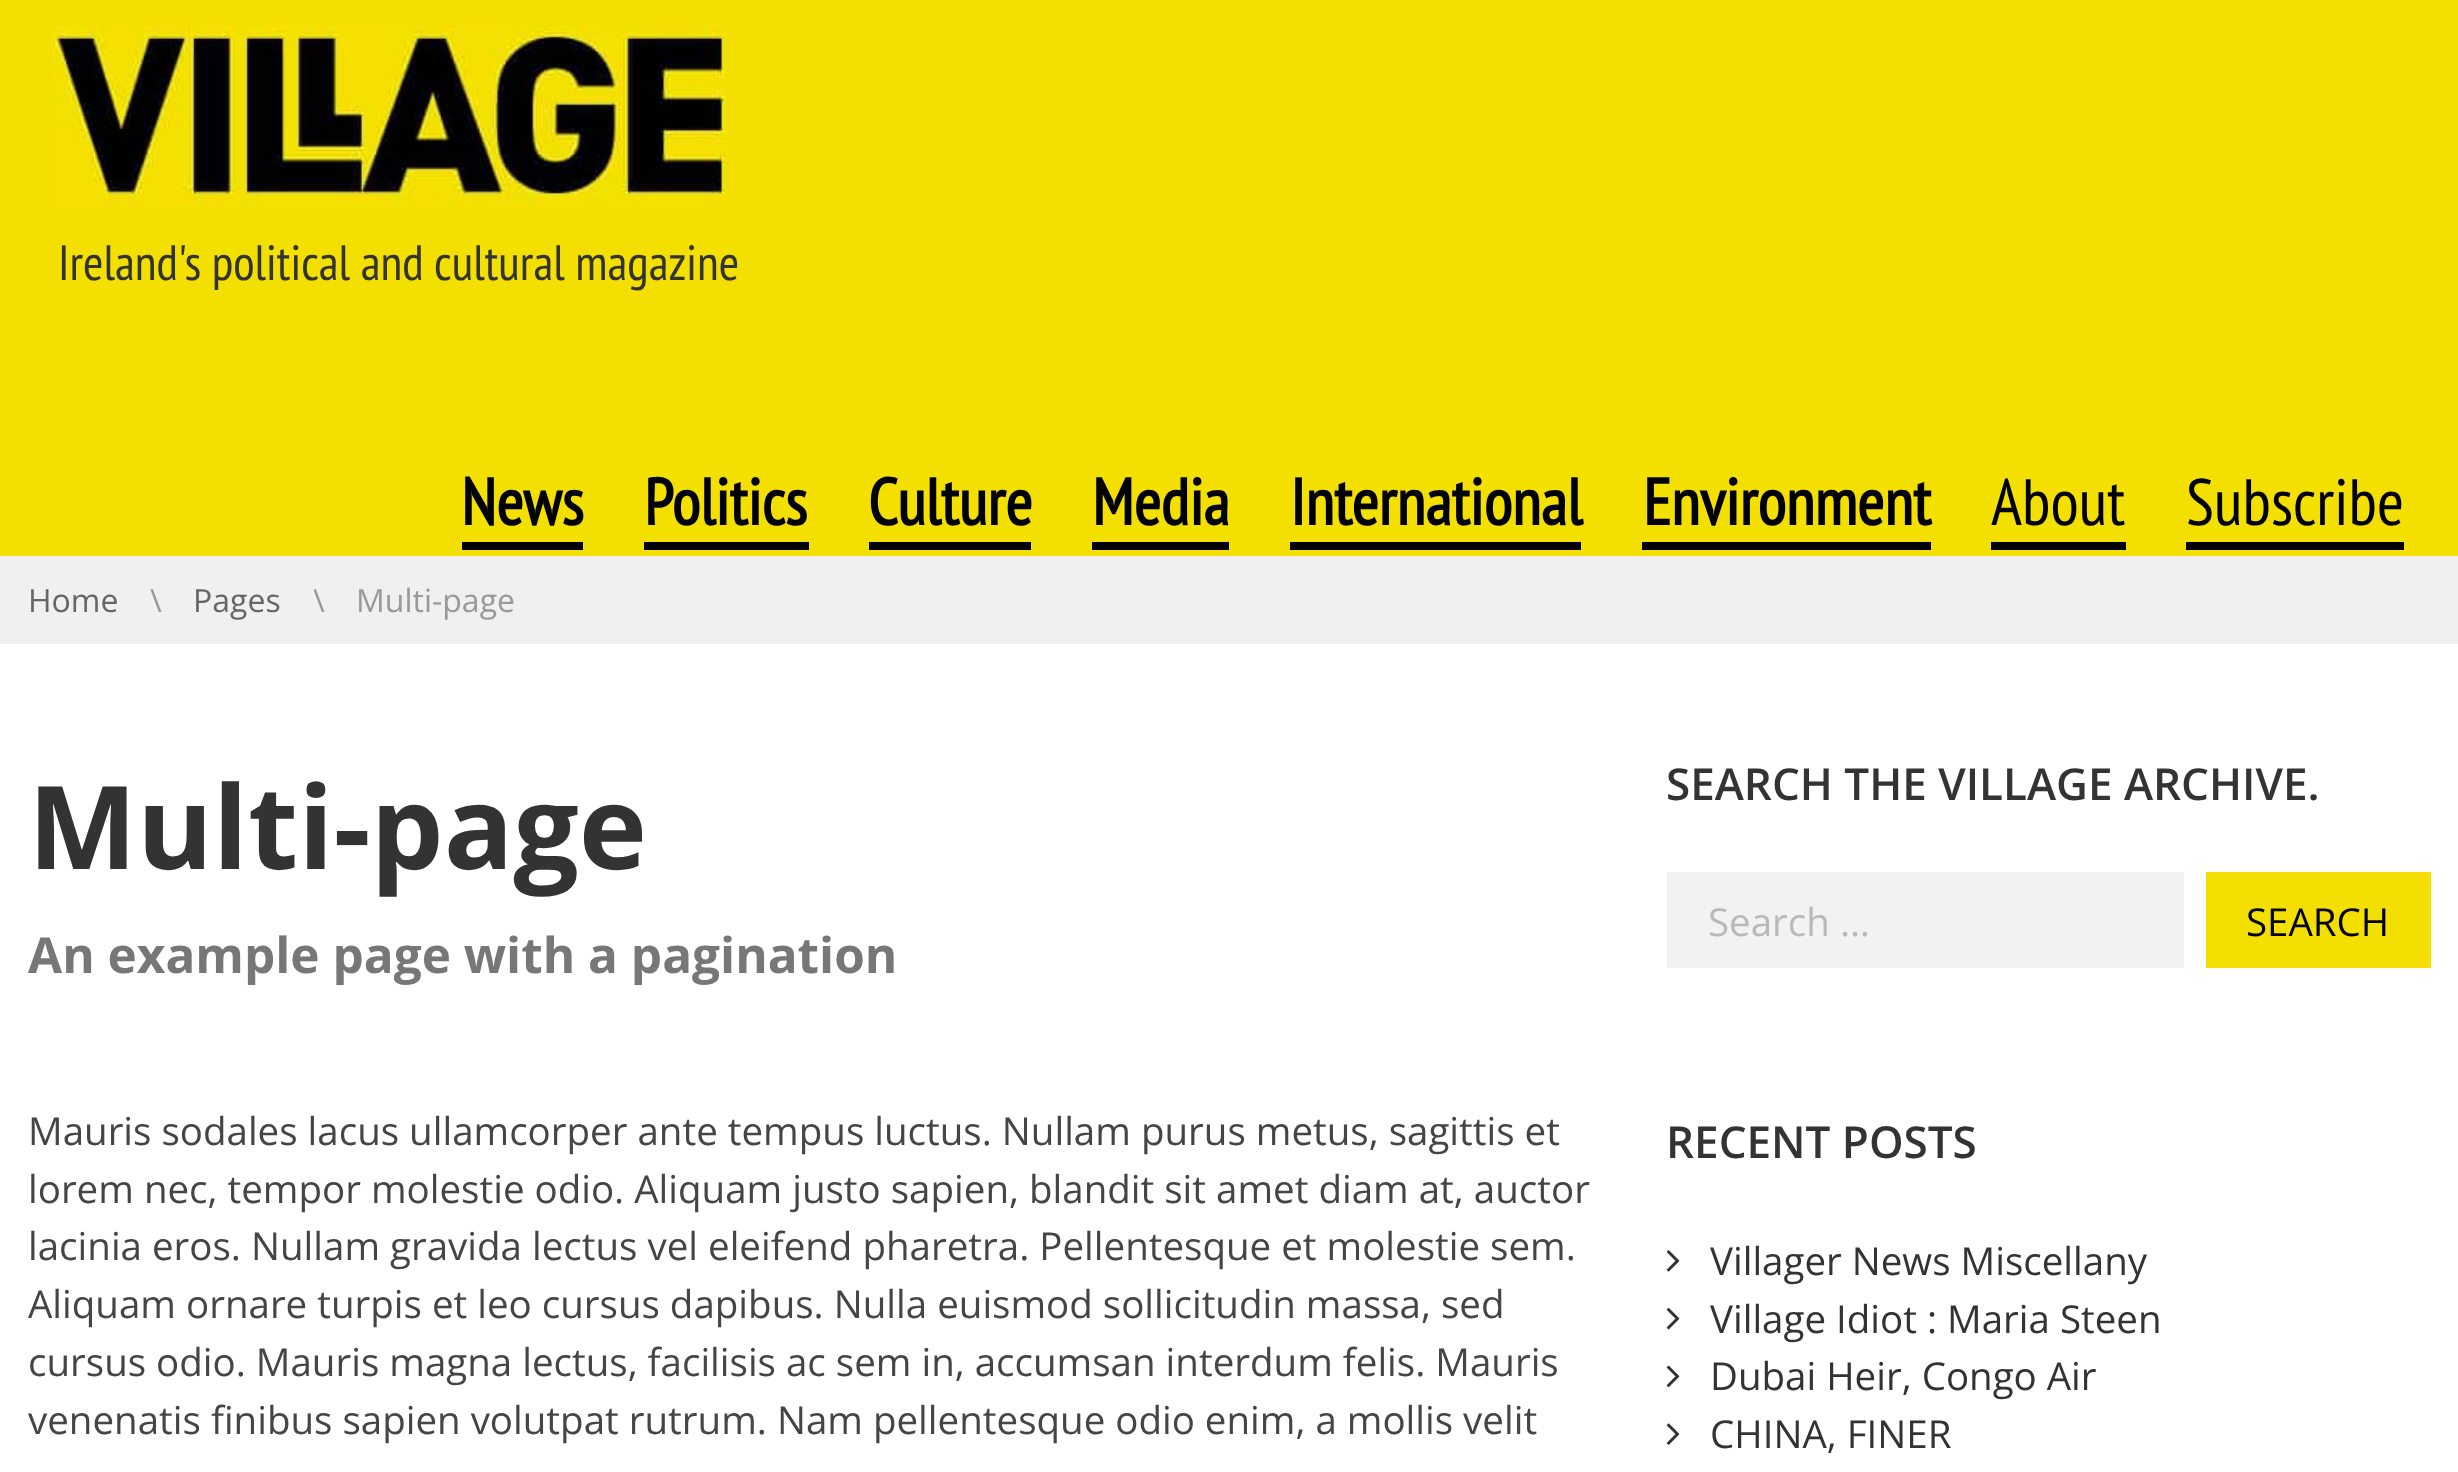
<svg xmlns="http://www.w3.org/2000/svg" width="2458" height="1472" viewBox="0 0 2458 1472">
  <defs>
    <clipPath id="clip1"><rect x="314" y="575" width="200" height="49"/></clipPath>
  </defs>
  <rect width="100%" height="100%" fill="rgb(255,255,255)"/>
  <rect x="0" y="0" width="2458" height="556" fill="rgb(244,224,0)"/>
  <image x="52" y="25" width="675" height="182" href="pic1.png"/>
  <text x="58" y="280" font-family="PT Sans Narrow" font-size="49.5" fill="rgb(51,51,51)">Ireland's political and cultural magazine</text>
  <rect x="462" y="542" width="121" height="8" fill="rgb(0,0,0)"/>
  <text x="461" y="525" font-family="PT Sans Narrow" font-size="65.5" font-weight="bold" fill="rgb(0,0,0)">News</text>
  <rect x="644" y="542" width="165" height="8" fill="rgb(0,0,0)"/>
  <text x="644" y="525" font-family="PT Sans Narrow" font-size="65.5" font-weight="bold" fill="rgb(0,0,0)">Politics</text>
  <rect x="869" y="542" width="162" height="8" fill="rgb(0,0,0)"/>
  <text x="868" y="525" font-family="PT Sans Narrow" font-size="65.5" font-weight="bold" fill="rgb(0,0,0)">Culture</text>
  <rect x="1092" y="542" width="137" height="8" fill="rgb(0,0,0)"/>
  <text x="1092" y="525" font-family="PT Sans Narrow" font-size="65.5" font-weight="bold" fill="rgb(0,0,0)">Media</text>
  <rect x="1290" y="542" width="291" height="8" fill="rgb(0,0,0)"/>
  <text x="1290" y="525" font-family="PT Sans Narrow" font-size="65.5" font-weight="bold" fill="rgb(0,0,0)">International</text>
  <rect x="1642" y="542" width="289" height="8" fill="rgb(0,0,0)"/>
  <text x="1643" y="525" font-family="PT Sans Narrow" font-size="65.5" font-weight="bold" fill="rgb(0,0,0)">Environment</text>
  <rect x="1991" y="542" width="135" height="8" fill="rgb(0,0,0)"/>
  <text x="1991" y="525" font-family="PT Sans Narrow" font-size="65.5" fill="rgb(0,0,0)">About</text>
  <rect x="2186" y="542" width="218" height="8" fill="rgb(0,0,0)"/>
  <text x="2186" y="525" font-family="PT Sans Narrow" font-size="65.5" fill="rgb(0,0,0)">Subscribe</text>
  <rect x="0" y="556" width="2458" height="88" fill="rgb(240,240,240)"/>
  <text x="28" y="612" font-family="Open Sans" font-size="32" fill="rgb(102,102,102)">Home</text>
  <text x="150" y="612" font-family="Open Sans" font-size="32" fill="rgb(153,153,153)">\</text>
  <text x="193" y="612" font-family="Open Sans" font-size="32" fill="rgb(102,102,102)">Pages</text>
  <g clip-path="url(#clip1)">
    <text x="313" y="612" font-family="Open Sans" font-size="32" fill="rgb(153,153,153)">\</text>
  </g>
  <text x="356" y="612" font-family="Open Sans" font-size="32" fill="rgb(153,153,153)">Multi-page</text>
  <text x="28" y="869" font-family="Open Sans" font-size="115.5" font-weight="bold" fill="rgb(51,51,51)">Multi-page</text>
  <text x="28" y="973" font-family="Open Sans" font-size="49.5" font-weight="bold" fill="rgb(119,119,119)">An example page with a pagination</text>
  <g font-family="Open Sans" font-size="38.5" fill="rgb(69,69,69)">
    <text>
      <tspan x="28" y="1145">Mauris sodales lacus ullamcorper ante tempus luctus. Nullam purus metus, sagittis et</tspan>
      <tspan x="28" y="1203">lorem nec, tempor molestie odio. Aliquam justo sapien, blandit sit amet diam at, auctor</tspan>
      <tspan x="28" y="1260">lacinia eros. Nullam gravida lectus vel eleifend pharetra. Pellentesque et molestie sem.</tspan>
      <tspan x="28" y="1318">Aliquam ornare turpis et leo cursus dapibus. Nulla euismod sollicitudin massa, sed</tspan>
      <tspan x="28" y="1376">cursus odio. Mauris magna lectus, facilisis ac sem in, accumsan interdum felis. Mauris</tspan>
      <tspan x="28" y="1434">venenatis finibus sapien volutpat rutrum. Nam pellentesque odio enim, a mollis velit</tspan>
    </text>
  </g>
  <text x="1666" y="800" font-family="Open Sans" font-size="44" font-weight="600" fill="rgb(51,51,51)">SEARCH THE VILLAGE ARCHIVE.</text>
  <rect x="1667" y="872" width="517" height="96" fill="rgb(242,242,242)"/>
  <text x="1708" y="936" font-family="Open Sans" font-size="38.5" fill="rgb(185,185,185)">Search …</text>
  <rect x="2206" y="872" width="225" height="96" fill="rgb(244,224,0)"/>
  <text x="2246" y="936" font-family="Open Sans" font-size="38.5" fill="rgb(0,0,0)">SEARCH</text>
  <text x="1666" y="1158" font-family="Open Sans" font-size="44" font-weight="600" fill="rgb(51,51,51)">RECENT POSTS</text>
  <image x="1666" y="1250" width="14" height="22" href="pic2.png"/>
  <text x="1710" y="1275" font-family="Open Sans" font-size="38.5" fill="rgb(51,51,51)">Villager News Miscellany</text>
  <image x="1666" y="1308" width="14" height="22" href="pic3.png"/>
  <text x="1710" y="1333" font-family="Open Sans" font-size="38.5" fill="rgb(51,51,51)">Village Idiot : Maria Steen</text>
  <image x="1666" y="1365" width="14" height="22" href="pic4.png"/>
  <text x="1710" y="1390" font-family="Open Sans" font-size="38.5" fill="rgb(51,51,51)">Dubai Heir, Congo Air</text>
  <image x="1666" y="1423" width="14" height="22" href="pic5.png"/>
  <text x="1710" y="1448" font-family="Open Sans" font-size="38.5" fill="rgb(51,51,51)">CHINA, FINER</text>
</svg>
